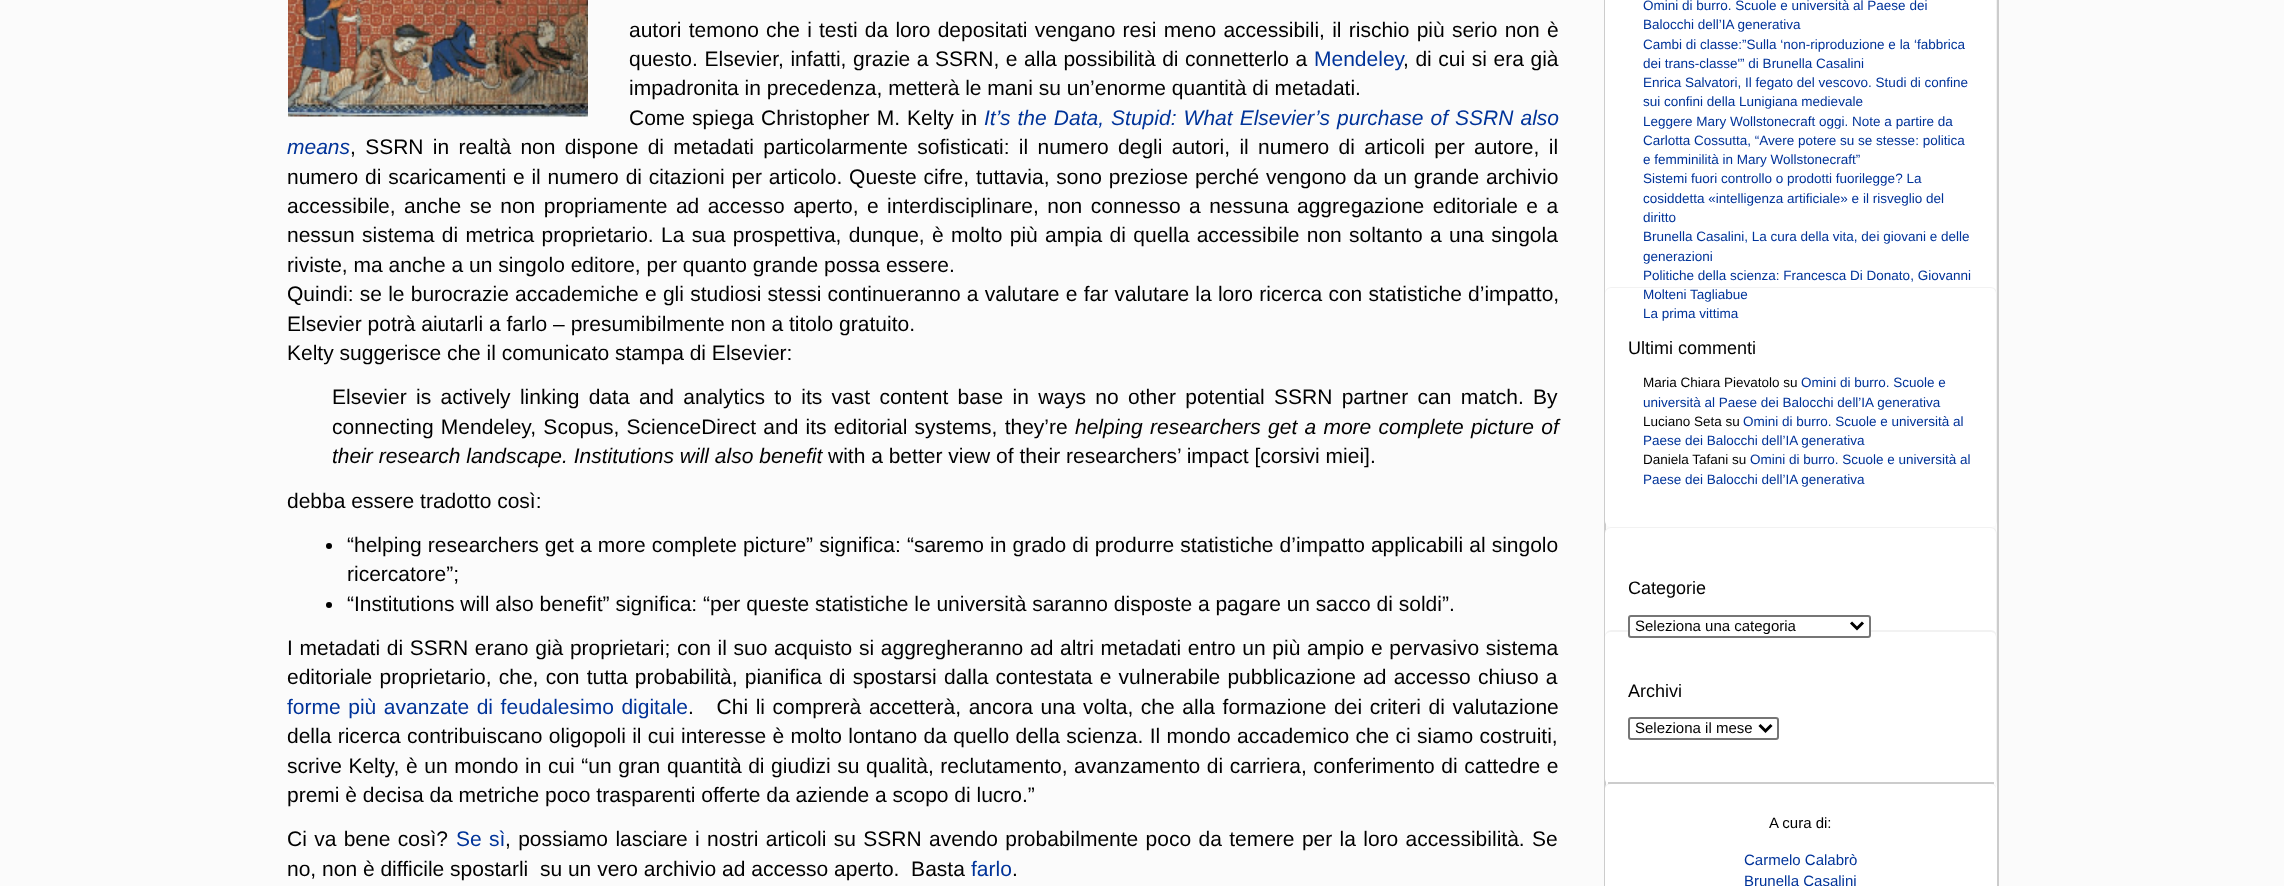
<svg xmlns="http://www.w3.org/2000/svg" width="2284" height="886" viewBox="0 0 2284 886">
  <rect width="100%" height="100%" fill="rgb(251,251,251)"/>
  <image x="288" y="0" width="300" height="117" href="pic1.png"/>
  <g font-family="Liberation Sans" font-size="21" fill="rgb(0,0,0)">
    <text>
      <tspan x="629" y="37" word-spacing="1.4">autori temono che i testi da loro depositati vengano resi meno accessibili, il rischio più serio non è</tspan>
      <tspan x="629" y="66" word-spacing="0.75">questo. Elsevier, infatti, grazie a SSRN, e alla possibilità di connetterlo a</tspan>
    </text>
  </g>
  <text x="1314" y="66" font-family="Liberation Sans" font-size="21" fill="rgb(0,51,153)">Mendeley</text>
  <g font-family="Liberation Sans" font-size="21" fill="rgb(0,0,0)">
    <text x="1403" y="66" word-spacing="0.75">, di cui si era già</text>
    <text>
      <tspan x="629" y="95">impadronita in precedenza, metterà le mani su un’enorme quantità di metadati.</tspan>
      <tspan x="629" y="125" word-spacing="1.25">Come spiega Christopher M. Kelty in</tspan>
    </text>
  </g>
  <g font-family="Liberation Sans" font-size="21" font-style="italic" fill="rgb(0,51,153)">
    <text x="984" y="125" word-spacing="1.25">It’s the Data, Stupid: What Elsevier’s purchase of SSRN also</text>
    <text x="287" y="154">means</text>
  </g>
  <g font-family="Liberation Sans" font-size="21" fill="rgb(0,0,0)">
    <text x="350" y="154" word-spacing="3.5">, SSRN in realtà non dispone di metadati particolarmente sofisticati: il numero degli autori, il numero di articoli per autore, il</text>
    <text>
      <tspan x="287" y="184" word-spacing="1">numero di scaricamenti e il numero di citazioni per articolo. Queste cifre, tuttavia, sono preziose perché vengono da un grande archivio</tspan>
      <tspan x="287" y="213" word-spacing="2.6">accessibile, anche se non propriamente ad accesso aperto, e interdisciplinare, non connesso a nessuna aggregazione editoriale e a</tspan>
      <tspan x="287" y="242" word-spacing="1.5">nessun sistema di metrica proprietario. La sua prospettiva, dunque, è molto più ampia di quella accessibile non soltanto a una singola</tspan>
      <tspan x="287" y="272">riviste, ma anche a un singolo editore, per quanto grande possa essere.</tspan>
      <tspan x="287" y="301" word-spacing="0.4">Quindi: se le burocrazie accademiche e gli studiosi stessi continueranno a valutare e far valutare la loro ricerca con statistiche d’impatto,</tspan>
      <tspan x="287" y="331">Elsevier potrà aiutarli a farlo – presumibilmente non a titolo gratuito.</tspan>
      <tspan x="287" y="360">Kelty suggerisce che il comunicato stampa di Elsevier:</tspan>
    </text>
    <text>
      <tspan x="332" y="404" word-spacing="3.5">Elsevier is actively linking data and analytics to its vast content base in ways no other potential SSRN partner can match. By</tspan>
      <tspan x="332" y="434" word-spacing="1.4">connecting Mendeley, Scopus, ScienceDirect and its editorial systems, they’re</tspan>
    </text>
  </g>
  <g font-family="Liberation Sans" font-size="21" font-style="italic" fill="rgb(0,0,0)">
    <text x="1075" y="434" word-spacing="1.4">helping researchers get a more complete picture of</text>
    <text x="332" y="463">their research landscape. Institutions will also benefit</text>
  </g>
  <g font-family="Liberation Sans" font-size="21" fill="rgb(0,0,0)">
    <text x="828" y="463">with a better view of their researchers’ impact [corsivi miei].</text>
    <text x="287" y="508">debba essere tradotto così:</text>
  </g>
  <circle cx="329" cy="546" r="3" fill="rgb(0,0,0)"/>
  <g font-family="Liberation Sans" font-size="21" fill="rgb(0,0,0)">
    <text>
      <tspan x="347" y="552" word-spacing="0.25">“helping researchers get a more complete picture” significa: “saremo in grado di produrre statistiche d’impatto applicabili al singolo</tspan>
      <tspan x="347" y="581">ricercatore”;</tspan>
    </text>
  </g>
  <circle cx="329" cy="605" r="3" fill="rgb(0,0,0)"/>
  <g font-family="Liberation Sans" font-size="21" fill="rgb(0,0,0)">
    <text x="347" y="611">“Institutions will also benefit” significa: “per queste statistiche le università saranno disposte a pagare un sacco di soldi”.</text>
    <text>
      <tspan x="287" y="655" word-spacing="0.85">I metadati di SSRN erano già proprietari; con il suo acquisto si aggregheranno ad altri metadati entro un più ampio e pervasivo sistema</tspan>
      <tspan x="287" y="684" word-spacing="1.4">editoriale proprietario, che, con tutta probabilità, pianifica di spostarsi dalla contestata e vulnerabile pubblicazione ad accesso chiuso a</tspan>
    </text>
  </g>
  <text x="287" y="714" word-spacing="1.75" font-family="Liberation Sans" font-size="21" fill="rgb(0,51,153)">forme più avanzate di feudalesimo digitale</text>
  <g font-family="Liberation Sans" font-size="21" fill="rgb(0,0,0)">
    <text x="688" y="714" word-spacing="1.75" xml:space="preserve">.   Chi li comprerà accetterà, ancora una volta, che alla formazione dei criteri di valutazione</text>
    <text>
      <tspan x="287" y="743" word-spacing="0.5">della ricerca contribuiscano oligopoli il cui interesse è molto lontano da quello della scienza. Il mondo accademico che ci siamo costruiti,</tspan>
      <tspan x="287" y="773" word-spacing="0.75">scrive Kelty, è un mondo in cui “un gran quantità di giudizi su qualità, reclutamento, avanzamento di carriera, conferimento di cattedre e</tspan>
      <tspan x="287" y="802">premi è decisa da metriche poco trasparenti offerte da aziende a scopo di lucro.”</tspan>
    </text>
    <text x="287" y="846" word-spacing="1.5">Ci va bene così?</text>
  </g>
  <text x="456" y="846" word-spacing="1.5" font-family="Liberation Sans" font-size="21" fill="rgb(0,51,153)">Se sì</text>
  <g font-family="Liberation Sans" font-size="21" fill="rgb(0,0,0)">
    <text x="505" y="846" word-spacing="1.5">, possiamo lasciare i nostri articoli su SSRN avendo probabilmente poco da temere per la loro accessibilità. Se</text>
    <text x="287" y="876" xml:space="preserve">no, non è difficile spostarli  su un vero archivio ad accesso aperto.  Basta</text>
  </g>
  <text x="971" y="876" font-family="Liberation Sans" font-size="21" fill="rgb(0,51,153)">farlo</text>
  <text x="1012" y="876" font-family="Liberation Sans" font-size="21" fill="rgb(0,0,0)">.</text>
  <rect x="1997" y="0" width="2" height="886" fill="rgb(204,204,204)"/>
  <rect x="1604" y="0" width="2" height="886" fill="rgb(204,204,204)"/>
  <rect x="1605" y="0" width="391" height="293" fill="rgb(255,255,255)"/>
  <path d="M1611-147H1990C1994-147 1996-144 1996-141V357C1996 358 1996 359 1995 360C1996 359 1997 358 1997 356V-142C1997-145 1994-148 1991-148H1611C1608-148 1605-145 1605-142V-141C1605-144 1608-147 1611-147Z" fill="rgb(242,242,242)"/>
  <g font-family="Liberation Sans" font-size="13.5" fill="rgb(0,51,153)">
    <text>
      <tspan x="1643" y="10">Omini di burro. Scuole e università al Paese dei</tspan>
      <tspan x="1643" y="29">Balocchi dell’IA generativa</tspan>
      <tspan x="1643" y="49">Cambi di classe:”Sulla ‘non-riproduzione e la ‘fabbrica</tspan>
      <tspan x="1643" y="68">dei trans-classe'” di Brunella Casalini</tspan>
      <tspan x="1643" y="87">Enrica Salvatori, Il fegato del vescovo. Studi di confine</tspan>
      <tspan x="1643" y="106">sui confini della Lunigiana medievale</tspan>
      <tspan x="1643" y="126">Leggere Mary Wollstonecraft oggi. Note a partire da</tspan>
      <tspan x="1643" y="145">Carlotta Cossutta, “Avere potere su se stesse: politica</tspan>
      <tspan x="1643" y="164">e femminilità in Mary Wollstonecraft”</tspan>
      <tspan x="1643" y="183">Sistemi fuori controllo o prodotti fuorilegge? La</tspan>
      <tspan x="1643" y="203">cosiddetta «intelligenza artificiale» e il risveglio del</tspan>
      <tspan x="1643" y="222">diritto</tspan>
      <tspan x="1643" y="241">Brunella Casalini, La cura della vita, dei giovani e delle</tspan>
      <tspan x="1643" y="261">generazioni</tspan>
      <tspan x="1643" y="280">Politiche della scienza: Francesca Di Donato, Giovanni</tspan>
    </text>
  </g>
  <rect x="1605" y="287" width="392" height="240" rx="6" fill="rgb(255,255,255)"/>
  <path d="M1611 288H1990C1994 288 1996 291 1996 294V522C1996 523 1996 524 1995 525C1996 524 1997 523 1997 521V293C1997 290 1994 287 1991 287H1611C1608 287 1605 290 1605 293V294C1605 291 1608 288 1611 288Z" fill="rgba(0,0,0,0.05)"/>
  <g font-family="Liberation Sans" font-size="13.5" fill="rgb(0,51,153)">
    <text>
      <tspan x="1643" y="299">Molteni Tagliabue</tspan>
      <tspan x="1643" y="318">La prima vittima</tspan>
    </text>
  </g>
  <text x="1628" y="354" font-family="Liberation Sans" font-size="18" fill="rgb(0,0,0)">Ultimi commenti</text>
  <text x="1643" y="387" font-family="Liberation Sans" font-size="13.5" fill="rgb(0,0,0)">Maria Chiara Pievatolo su</text>
  <g font-family="Liberation Sans" font-size="13.5" fill="rgb(0,51,153)">
    <text x="1801" y="387">Omini di burro. Scuole e</text>
    <text x="1643" y="407">università al Paese dei Balocchi dell’IA generativa</text>
  </g>
  <text x="1643" y="426" font-family="Liberation Sans" font-size="13.5" fill="rgb(0,0,0)">Luciano Seta su</text>
  <g font-family="Liberation Sans" font-size="13.5" fill="rgb(0,51,153)">
    <text x="1743" y="426">Omini di burro. Scuole e università al</text>
    <text x="1643" y="445">Paese dei Balocchi dell’IA generativa</text>
  </g>
  <text x="1643" y="464" font-family="Liberation Sans" font-size="13.5" fill="rgb(0,0,0)">Daniela Tafani su</text>
  <g font-family="Liberation Sans" font-size="13.5" fill="rgb(0,51,153)">
    <text x="1750" y="464">Omini di burro. Scuole e università al</text>
    <text x="1643" y="484">Paese dei Balocchi dell’IA generativa</text>
  </g>
  <rect x="1605" y="527" width="392" height="133" rx="6" fill="rgb(255,255,255)"/>
  <path d="M1611 528H1990C1994 528 1996 531 1996 534V658C1997 657 1997 655 1997 654V533C1997 530 1994 527 1991 527H1611C1608 527 1605 530 1605 533V534C1605 531 1608 528 1611 528Z" fill="rgb(242,242,242)"/>
  <text x="1628" y="594" font-family="Liberation Sans" font-size="18" fill="rgb(0,0,0)">Categorie</text>
  <rect x="1605" y="630" width="392" height="155" rx="6" fill="rgb(255,255,255)"/>
  <path d="M1611 632H1990C1994 632 1996 634 1996 638V780C1996 781 1996 782 1995 783C1996 782 1997 781 1997 779V636C1997 633 1994 630 1991 630H1611C1608 630 1605 633 1605 636V638C1605 634 1608 632 1611 632Z" fill="rgba(0,0,0,0.05)"/>
  <rect x="1629" y="616" width="241" height="21" rx="2" fill="rgb(255,255,255)" stroke="rgb(118,118,118)" stroke-width="2"/>
  <path d="M1851 622.5L1857 628.5L1863 622.5" fill="none" stroke="rgb(0,0,0)" stroke-width="3"/>
  <text x="1635" y="631" font-family="Liberation Sans" font-size="15" fill="rgb(0,0,0)">Seleziona una categoria</text>
  <text x="1628" y="697" font-family="Liberation Sans" font-size="18" fill="rgb(0,0,0)">Archivi</text>
  <rect x="1629" y="718" width="149" height="21" rx="2" fill="none" stroke="rgb(118,118,118)" stroke-width="2"/>
  <path d="M1759.5 725L1765.5 731L1771.5 725" fill="none" stroke="rgb(0,0,0)" stroke-width="3"/>
  <text x="1635" y="733" font-family="Liberation Sans" font-size="15" fill="rgb(0,0,0)">Seleziona il mese</text>
  <rect x="1605" y="782" width="392" height="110" rx="6" fill="rgb(255,255,255)"/>
  <path d="M1611 784H1990C1994 784 1996 787 1996 789V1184V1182V788C1996 785 1994 783 1990 783H1611C1608 783 1605 785 1605 788V789C1605 787 1608 784 1611 784Z" fill="rgba(0,0,0,0.05)"/>
  <rect x="1608" y="782" width="386" height="2" fill="rgb(204,204,204)"/>
  <text x="1769" y="828" font-family="Liberation Sans" font-size="15" fill="rgb(0,0,0)">A cura di:</text>
  <g font-family="Liberation Sans" font-size="15" fill="rgb(0,51,153)">
    <text>
      <tspan x="1744" y="865">Carmelo Calabrò</tspan>
      <tspan x="1744" y="886">Brunella Casalini</tspan>
    </text>
  </g>
</svg>
